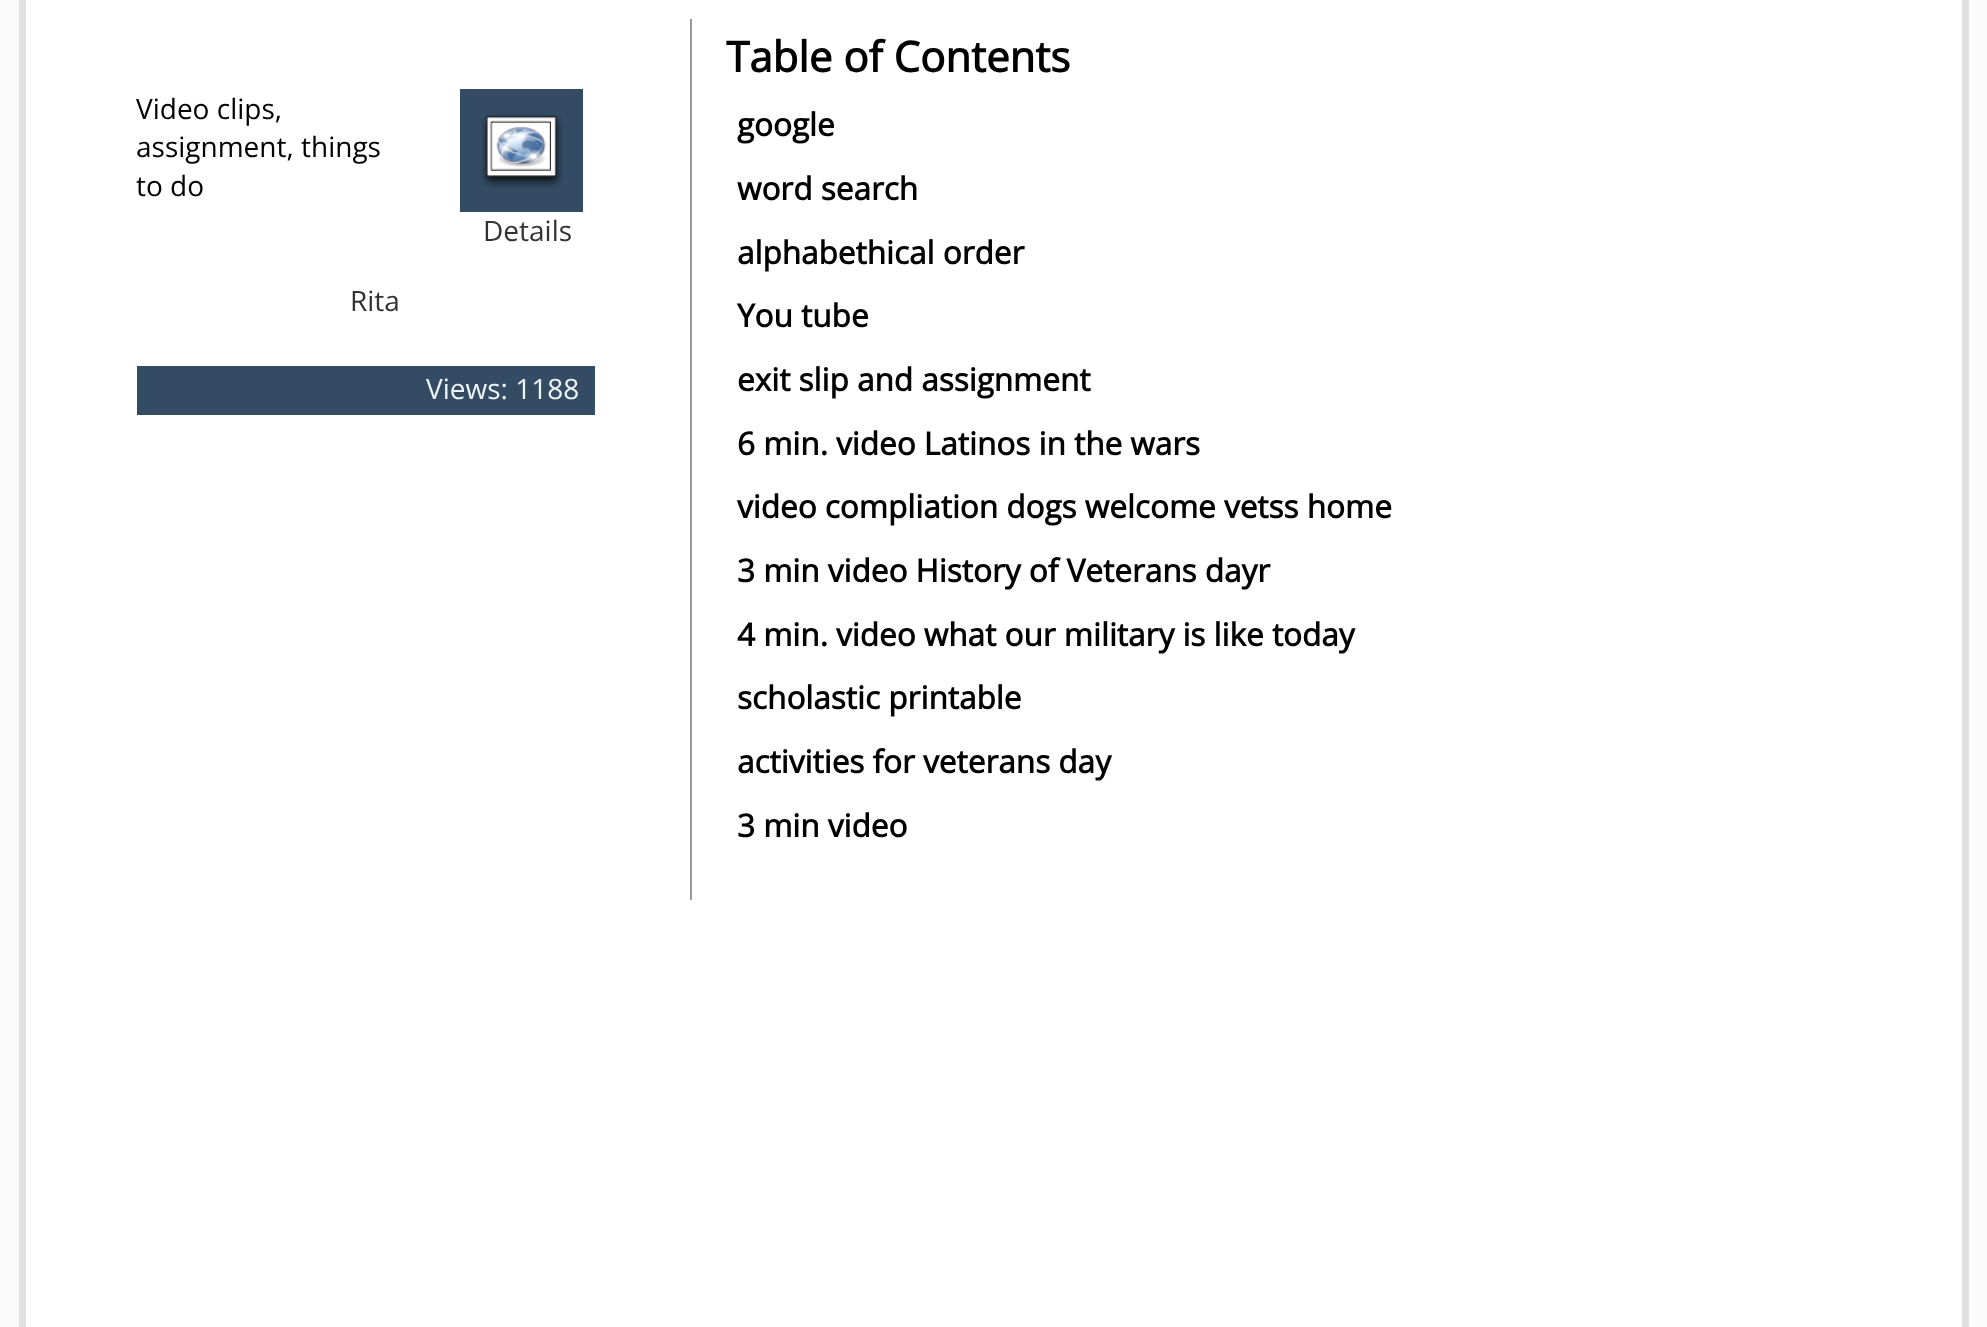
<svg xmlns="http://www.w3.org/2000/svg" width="1987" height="1327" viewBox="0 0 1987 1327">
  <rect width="100%" height="100%" fill="rgb(251,251,251)"/>
  <rect x="26" y="0" width="1936" height="1327" fill="rgb(255,255,255)"/>
  <rect x="1962" y="0" width="7" height="1327" fill="rgb(224,224,224)"/>
  <rect x="19" y="0" width="7" height="1327" fill="rgb(224,224,224)"/>
  <rect x="690" y="19" width="2" height="881" fill="rgb(153,153,153)"/>
  <text x="726" y="72" font-family="Open Sans" font-size="42" font-weight="bold" fill="rgb(0,0,0)">Table of Contents</text>
  <g font-family="Open Sans" font-size="28" fill="rgb(0,0,0)">
    <text>
      <tspan x="136" y="119">Video clips,</tspan>
      <tspan x="136" y="157">assignment, things</tspan>
      <tspan x="136" y="196">to do</tspan>
    </text>
  </g>
  <rect x="460" y="89" width="123" height="123" fill="rgb(51,75,99)"/>
  <image x="481" y="114" width="82" height="74" href="pic1.png"/>
  <g font-family="Open Sans" font-size="28" fill="rgb(51,51,51)">
    <text x="483" y="241">Details</text>
    <text x="350" y="311">Rita</text>
  </g>
  <rect x="137" y="366" width="458" height="49" fill="rgb(51,75,99)"/>
  <text x="426" y="399" font-family="Open Sans" font-size="28" fill="rgb(238,243,247)">Views: 1188</text>
  <g font-family="Open Sans" font-size="31.5" font-weight="bold" fill="rgb(0,0,0)">
    <text x="737" y="136">google</text>
    <text x="737" y="200">word search</text>
    <text x="737" y="264">alphabethical order</text>
    <text x="737" y="327">You tube</text>
    <text x="737" y="391">exit slip and assignment</text>
    <text x="737" y="455">6 min. video Latinos in the wars</text>
    <text x="737" y="518">video compliation dogs welcome vetss home</text>
    <text x="737" y="582">3 min video History of Veterans dayr</text>
    <text x="737" y="646">4 min. video what our military is like today</text>
    <text x="737" y="709">scholastic printable</text>
    <text x="737" y="773">activities for veterans day</text>
    <text x="737" y="837">3 min video</text>
  </g>
</svg>
